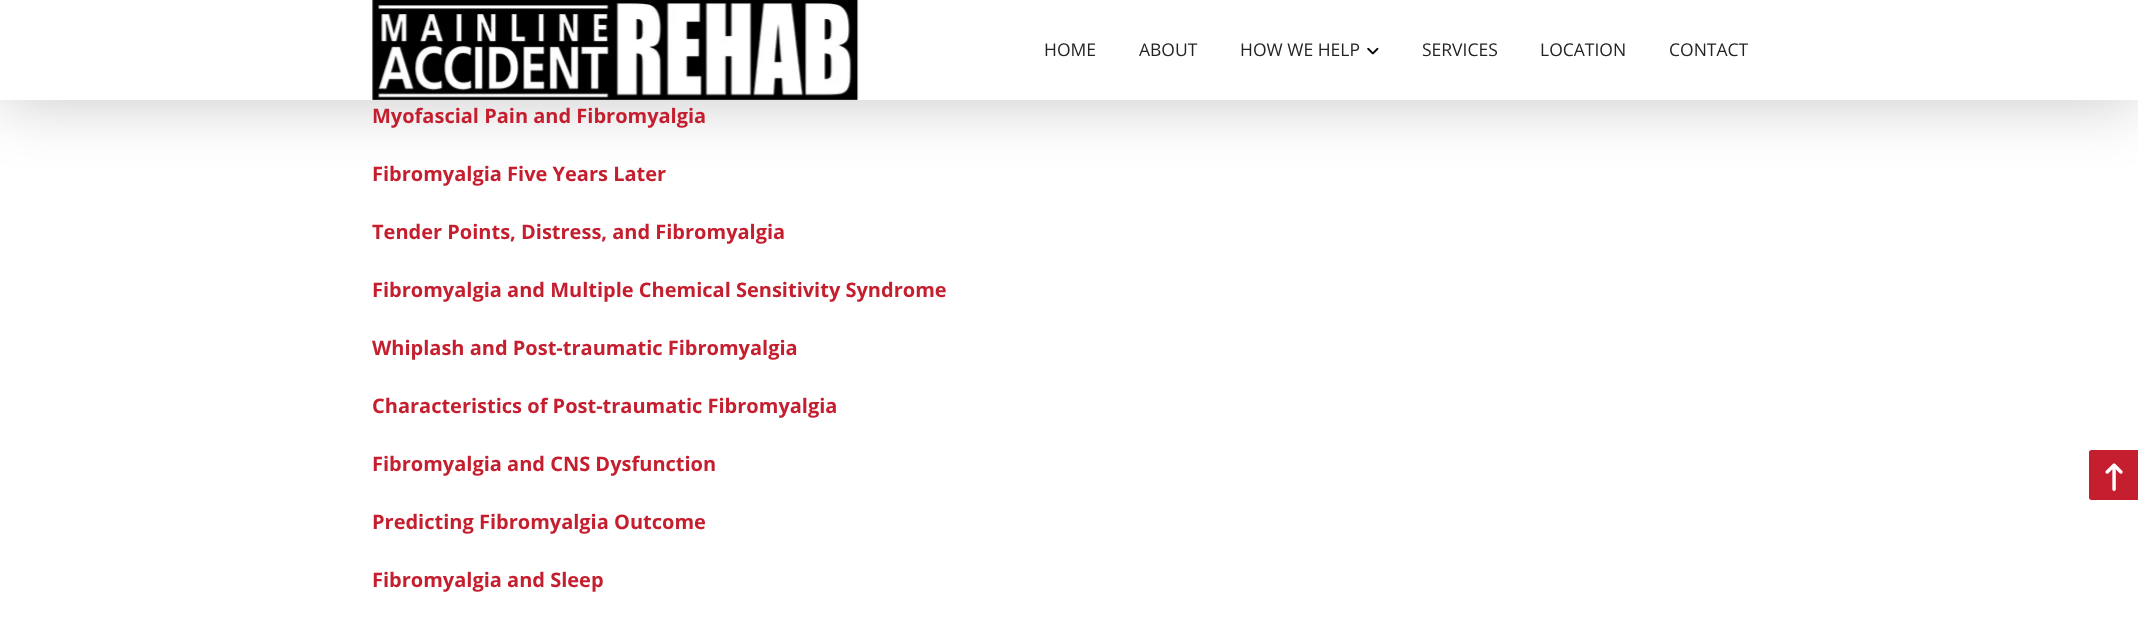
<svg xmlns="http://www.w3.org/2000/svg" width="2138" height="624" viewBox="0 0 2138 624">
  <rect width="100%" height="100%" fill="rgb(255,255,255)"/>
  <rect x="0" y="4" width="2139" height="100" fill="rgba(0,0,0,0.2)" filter="blur(31px)"/>
  <rect x="0" y="0" width="2138" height="100" fill="rgb(255,255,255)"/>
  <image x="372" y="0" width="487" height="100" href="pic1.png"/>
  <g font-family="Open Sans" font-size="17.5" fill="rgb(35,35,35)">
    <text x="1044" y="56">HOME</text>
    <text x="1139" y="56">ABOUT</text>
    <text x="1240" y="56">HOW WE HELP</text>
  </g>
  <image x="1367" y="47" width="12" height="8" href="pic2.png"/>
  <g font-family="Open Sans" font-size="17.5" fill="rgb(35,35,35)">
    <text x="1422" y="56">SERVICES</text>
    <text x="1540" y="56">LOCATION</text>
    <text x="1669" y="56">CONTACT</text>
  </g>
  <g font-family="Open Sans" font-size="20" font-weight="bold" fill="rgb(197,30,46)">
    <text x="372" y="123">Myofascial Pain and Fibromyalgia</text>
    <text x="372" y="181">Fibromyalgia Five Years Later</text>
    <text x="372" y="239">Tender Points, Distress, and Fibromyalgia</text>
    <text x="372" y="297">Fibromyalgia and Multiple Chemical Sensitivity Syndrome</text>
    <text x="372" y="355">Whiplash and Post-traumatic Fibromyalgia</text>
    <text x="372" y="413">Characteristics of Post-traumatic Fibromyalgia</text>
    <text x="372" y="471">Fibromyalgia and CNS Dysfunction</text>
    <text x="372" y="529">Predicting Fibromyalgia Outcome</text>
    <text x="372" y="587">Fibromyalgia and Sleep</text>
  </g>
  <path d="M2091.5 450H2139V500H2091.5C2090 500 2089 499 2089 497.5V452.5C2089 451 2090 450 2091.5 450Z" fill="rgb(197,30,46)"/>
  <image x="2105" y="463" width="18" height="28" href="pic3.png"/>
</svg>
